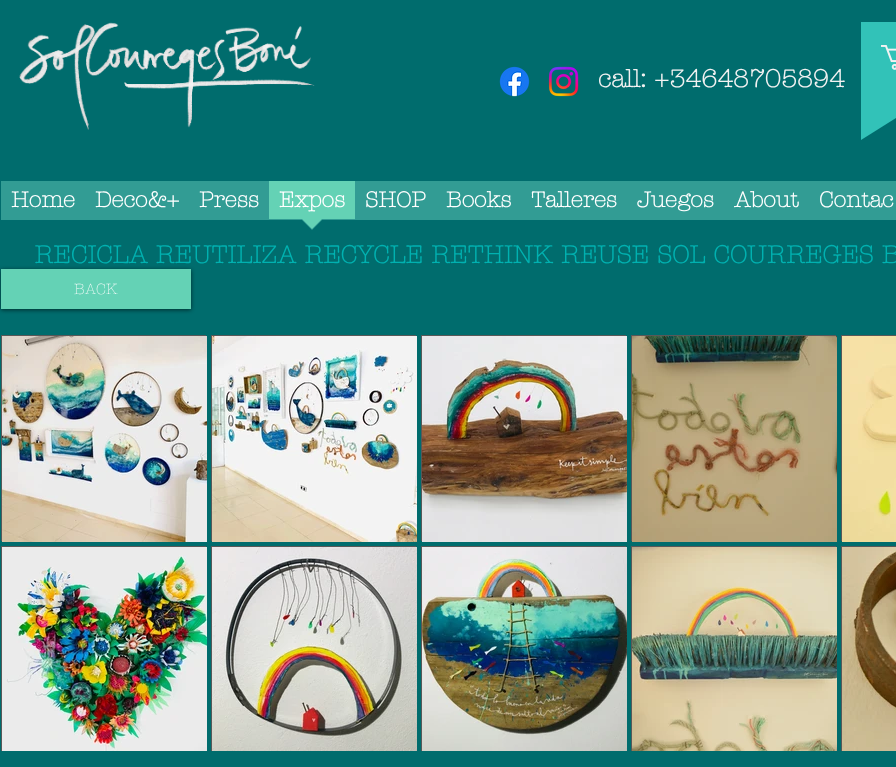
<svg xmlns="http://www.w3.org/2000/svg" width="896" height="767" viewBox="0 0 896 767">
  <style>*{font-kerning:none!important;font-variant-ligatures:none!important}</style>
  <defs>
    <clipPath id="clip1"><rect x="861" y="80" width="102" height="60"/></clipPath>
  </defs>
  <rect width="100%" height="100%" fill="rgb(0,108,109)"/>
  <image x="19" y="22" width="296" height="108" href="pic1.png"/>
  <image x="499" y="66" width="31" height="31" href="pic2.png"/>
  <image x="548" y="66" width="31" height="31" href="pic3.png"/>
  <text x="598" y="87" font-family="'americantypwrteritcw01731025'" font-size="25" font-weight="bold" fill="rgb(242,242,242)">call: +34648705894</text>
  <rect x="861" y="22" width="35" height="58" fill="rgb(50,194,184)"/>
  <image x="881" y="45" width="15" height="25" href="pic4.png"/>
  <g clip-path="url(#clip1)">
    <path d="M861 140V-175H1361Z" fill="rgb(50,194,184)"/>
  </g>
  <rect x="1" y="181" width="895" height="39" fill="rgb(50,156,148)"/>
  <g font-family="'americantypwrteritcw01731025'" font-size="22" font-weight="bold" fill="rgb(255,255,255)">
    <text x="11" y="207">Home</text>
    <text x="95" y="207">Deco&amp;+</text>
    <text x="199" y="207">Press</text>
  </g>
  <rect x="269" y="181" width="86" height="38" fill="rgb(100,210,181)"/>
  <text x="279" y="207" font-family="'americantypwrteritcw01731025'" font-size="22" font-weight="bold" fill="rgb(255,255,255)">Expos</text>
  <path d="M301 219H323L312 230Z" fill="rgb(50,156,148)"/>
  <path d="M302 219H322L312 229Z" fill="rgb(100,210,181)"/>
  <g font-family="'americantypwrteritcw01731025'" font-size="22" font-weight="bold" fill="rgb(255,255,255)">
    <text x="365" y="207">SHOP</text>
    <text x="446" y="207">Books</text>
    <text x="531" y="207">Talleres</text>
    <text x="637" y="207">Juegos</text>
    <text x="734" y="207">About</text>
    <text x="819" y="207">Contac</text>
  </g>
  <text x="34" y="263" font-family="'americantypwrteritcw01731025'" font-size="25" font-weight="bold" fill="rgb(0,177,176)">RECICLA REUTILIZA RECYCLE RETHINK REUSE SOL COURREGES B</text>
  <rect x="1" y="270" width="190" height="40" fill="rgba(0,0,0,0.6)" filter="blur(2px)"/>
  <rect x="1" y="269" width="190" height="40" fill="rgb(100,210,181)"/>
  <text x="74" y="294" font-family="'americantypwrteritcw01731025'" font-size="15" font-weight="300" fill="rgb(255,255,255)">BACK</text>
  <rect x="1" y="335" width="205" height="206" fill="rgb(89,88,88)"/>
  <image x="2" y="336" width="205" height="206" href="pic5.png"/>
  <rect x="1" y="546" width="205" height="205" fill="rgb(89,88,88)"/>
  <image x="2" y="547" width="205" height="204" href="pic6.png"/>
  <rect x="211" y="335" width="205" height="206" fill="rgb(89,88,88)"/>
  <image x="212" y="336" width="205" height="206" href="pic7.png"/>
  <rect x="211" y="546" width="205" height="205" fill="rgb(89,88,88)"/>
  <image x="212" y="547" width="205" height="204" href="pic8.png"/>
  <rect x="421" y="335" width="205" height="206" fill="rgb(89,88,88)"/>
  <image x="422" y="336" width="205" height="206" href="pic9.png"/>
  <rect x="421" y="546" width="205" height="205" fill="rgb(89,88,88)"/>
  <image x="422" y="547" width="205" height="204" href="pic10.png"/>
  <rect x="631" y="335" width="205" height="206" fill="rgb(89,88,88)"/>
  <image x="632" y="336" width="205" height="206" href="pic11.png"/>
  <rect x="631" y="546" width="205" height="205" fill="rgb(89,88,88)"/>
  <image x="632" y="547" width="205" height="204" href="pic12.png"/>
  <rect x="841" y="335" width="55" height="206" fill="rgb(89,88,88)"/>
  <image x="842" y="336" width="54" height="206" href="pic13.png"/>
  <rect x="841" y="546" width="55" height="205" fill="rgb(89,88,88)"/>
  <image x="842" y="547" width="54" height="204" href="pic14.png"/>
</svg>
